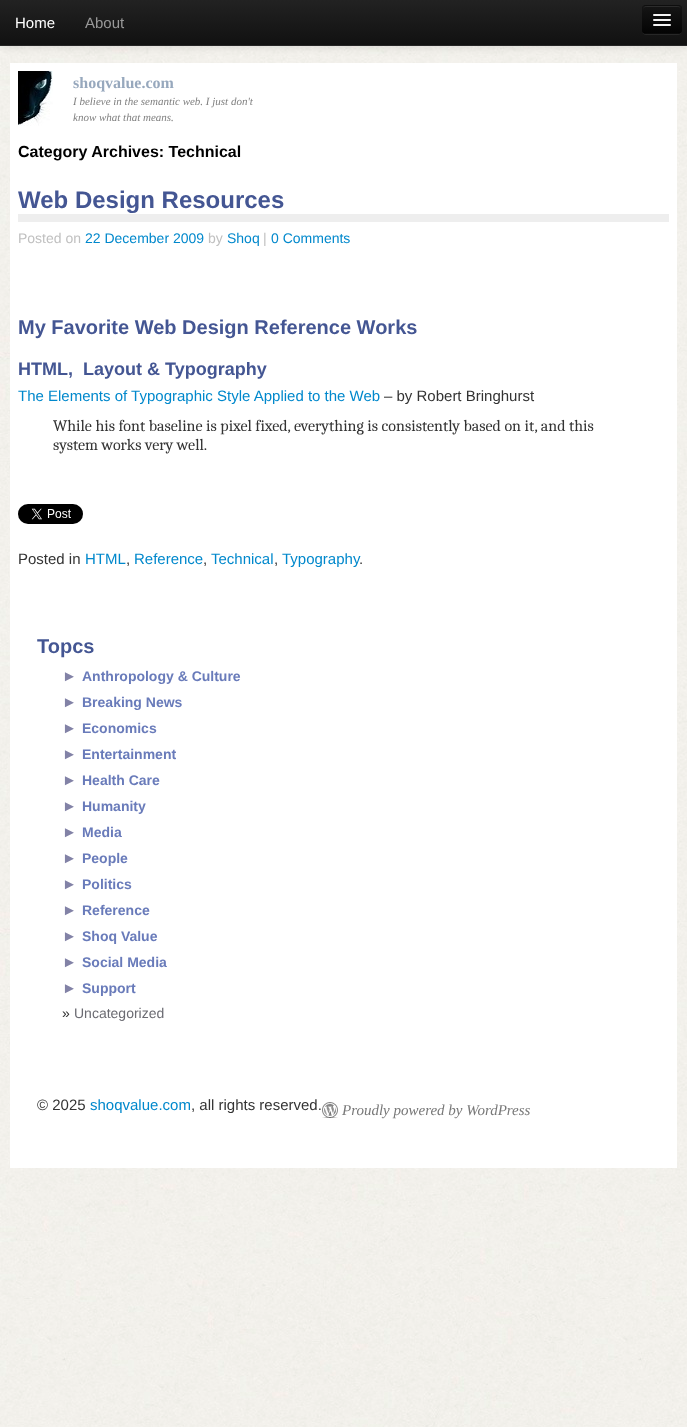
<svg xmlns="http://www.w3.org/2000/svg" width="687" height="1427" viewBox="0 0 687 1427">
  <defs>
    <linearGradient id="g1" gradientUnits="userSpaceOnUse" x1="344" y1="0" x2="344" y2="45"><stop offset="0" stop-color="rgb(34,34,34)"/><stop offset="1" stop-color="rgb(17,17,17)"/></linearGradient>
    <clipPath id="clip1"><rect x="642" y="5" width="40" height="29" rx="4"/></clipPath>
    <linearGradient id="g2" gradientUnits="userSpaceOnUse" x1="662" y1="6" x2="662" y2="33"><stop offset="0" stop-color="rgb(21,21,21)"/><stop offset="1" stop-color="rgb(4,4,4)"/></linearGradient>
  </defs>
  <rect width="100%" height="100%" fill="rgb(255,255,255)"/>
  <image x="0" y="46" width="687" height="1381" href="pic1.png"/>
  <rect x="10" y="63" width="667" height="1105" fill="rgb(255,255,255)"/>
  <rect x="0" y="1" width="687" height="46" fill="rgba(0,0,0,0.1)" filter="blur(5px)"/>
  <rect x="0" y="0" width="687" height="45" fill="url(#g1)"/>
  <rect x="0" y="45" width="687" height="1" fill="rgb(37,37,37)"/>
  <text x="15" y="28" font-family="Liberation Sans" font-size="15" fill="rgb(255,255,255)">Home</text>
  <text x="85" y="28" font-family="Liberation Sans" font-size="15" fill="rgb(153,153,153)">About</text>
  <path d="M642 30C642 36 647 35 651 35H673C677 35 682 36 682 30C682 32 680 34 678 34H646C644 34 642 32 642 30Z" fill="rgb(39,39,39)"/>
  <rect x="642" y="5" width="40" height="29" rx="4" fill="rgb(14,14,14)"/>
  <g clip-path="url(#clip1)">
    <rect x="642" y="6" width="40" height="27" fill="url(#g2)"/>
  </g>
  <path d="M646 7H678C680 7 681 8 681 10C681 5 677 6 672.5 6H651.5C647 6 643 5 643 10C643 8 644 7 646 7Z" fill="rgb(44,44,44)"/>
  <path d="M680.5 32.5C680 33 679 33.5 678 33.5H646C645 33.5 644 33 643.5 32.5" fill="none" stroke="rgba(0,0,0,0.25)"/>
  <path d="M653 15.5C652 17.5 656.5 17 656.5 17H667.5C667.5 17 672 17.5 671 15.5C670 16.5 663.5 16 662 16C660.5 16 654 16.5 653 15.5Z" fill="rgb(11,11,11)"/>
  <rect x="653" y="14" width="18" height="2" rx="1" fill="rgb(245,245,245)"/>
  <path d="M653 20.5C652 22.5 656.5 22 656.5 22H667.5C667.5 22 672 22.5 671 20.5C670 21.5 663.5 21 662 21C660.5 21 654 21.5 653 20.5Z" fill="rgb(8,8,8)"/>
  <rect x="653" y="19" width="18" height="2" rx="1" fill="rgb(245,245,245)"/>
  <rect x="653" y="24" width="18" height="2" rx="1" fill="rgb(245,245,245)"/>
  <image x="18" y="71" width="35" height="55" href="pic2.png"/>
  <text x="73" y="88" font-family="Liberation Serif" font-size="16" font-weight="bold" fill="rgb(151,168,189)">shoqvalue.com</text>
  <g font-family="Liberation Serif" font-size="11" font-style="italic" fill="rgb(128,128,128)">
    <text>
      <tspan x="73" y="105">I believe in the semantic web. I just don't</tspan>
      <tspan x="73" y="121">know what that means.</tspan>
    </text>
  </g>
  <text x="18" y="157" font-family="Liberation Sans" font-size="16" font-weight="bold" fill="rgb(0,0,0)">Category Archives: Technical</text>
  <rect x="18" y="214" width="651" height="8" fill="rgb(238,238,238)"/>
  <text x="18" y="208" font-family="Liberation Sans" font-size="24" font-weight="bold" fill="rgb(68,86,147)">Web Design Resources</text>
  <text x="18" y="243" font-family="Liberation Sans" font-size="14" fill="rgb(192,192,192)">Posted on</text>
  <text x="85" y="243" font-family="Liberation Sans" font-size="14" fill="rgb(0,136,204)">22 December 2009</text>
  <text x="208" y="243" font-family="Liberation Sans" font-size="14" fill="rgb(192,192,192)">by</text>
  <text x="227" y="243" font-family="Liberation Sans" font-size="14" fill="rgb(0,136,204)">Shoq</text>
  <text x="263" y="243" font-family="Liberation Sans" font-size="14" fill="rgb(192,192,192)">|</text>
  <text x="271" y="243" font-family="Liberation Sans" font-size="14" fill="rgb(0,136,204)">0 Comments</text>
  <text x="18" y="334" font-family="Liberation Sans" font-size="20" font-weight="bold" fill="rgb(68,86,147)">My Favorite Web Design Reference Works</text>
  <text x="18" y="375" font-family="Liberation Sans" font-size="18" font-weight="bold" fill="rgb(68,86,147)" xml:space="preserve">HTML,  Layout &amp; Typography</text>
  <text x="18" y="401" font-family="Liberation Sans" font-size="15" fill="rgb(0,136,204)">The Elements of Typographic Style Applied to the Web</text>
  <text x="384" y="401" font-family="Liberation Sans" font-size="15" fill="rgb(51,51,51)">– by Robert Bringhurst</text>
  <g font-family="Caladea" font-size="16" fill="rgb(51,51,51)">
    <text>
      <tspan x="53" y="431">While his font baseline is pixel fixed, everything is consistently based on it, and this</tspan>
      <tspan x="53" y="450">system works very well.</tspan>
    </text>
  </g>
  <image x="18" y="504" width="65" height="20" href="pic3.png"/>
  <text x="18" y="564" font-family="Liberation Sans" font-size="15" fill="rgb(51,51,51)">Posted in</text>
  <text x="85" y="564" font-family="Liberation Sans" font-size="15" fill="rgb(0,136,204)">HTML</text>
  <text x="126" y="564" font-family="Liberation Sans" font-size="15" fill="rgb(51,51,51)">,</text>
  <text x="134" y="564" font-family="Liberation Sans" font-size="15" fill="rgb(0,136,204)">Reference</text>
  <text x="203" y="564" font-family="Liberation Sans" font-size="15" fill="rgb(51,51,51)">,</text>
  <text x="211" y="564" font-family="Liberation Sans" font-size="15" fill="rgb(0,136,204)">Technical</text>
  <text x="274" y="564" font-family="Liberation Sans" font-size="15" fill="rgb(51,51,51)">,</text>
  <text x="282" y="564" font-family="Liberation Sans" font-size="15" fill="rgb(0,136,204)">Typography</text>
  <text x="359" y="564" font-family="Liberation Sans" font-size="15" fill="rgb(51,51,51)">.</text>
  <text x="37" y="653" font-family="Liberation Sans" font-size="20" font-weight="bold" fill="rgb(68,86,147)">Topcs</text>
  <text x="62" y="681" font-family="Liberation Sans" font-size="15" fill="rgb(130,130,166)">►</text>
  <text x="82" y="681" font-family="Liberation Sans" font-size="14" font-weight="bold" fill="rgb(105,123,186)">Anthropology &amp; Culture</text>
  <text x="62" y="707" font-family="Liberation Sans" font-size="15" fill="rgb(130,130,166)">►</text>
  <text x="82" y="707" font-family="Liberation Sans" font-size="14" font-weight="bold" fill="rgb(105,123,186)">Breaking News</text>
  <text x="62" y="733" font-family="Liberation Sans" font-size="15" fill="rgb(130,130,166)">►</text>
  <text x="82" y="733" font-family="Liberation Sans" font-size="14" font-weight="bold" fill="rgb(105,123,186)">Economics</text>
  <text x="62" y="759" font-family="Liberation Sans" font-size="15" fill="rgb(130,130,166)">►</text>
  <text x="82" y="759" font-family="Liberation Sans" font-size="14" font-weight="bold" fill="rgb(105,123,186)">Entertainment</text>
  <text x="62" y="785" font-family="Liberation Sans" font-size="15" fill="rgb(130,130,166)">►</text>
  <text x="82" y="785" font-family="Liberation Sans" font-size="14" font-weight="bold" fill="rgb(105,123,186)">Health Care</text>
  <text x="62" y="811" font-family="Liberation Sans" font-size="15" fill="rgb(130,130,166)">►</text>
  <text x="82" y="811" font-family="Liberation Sans" font-size="14" font-weight="bold" fill="rgb(105,123,186)">Humanity</text>
  <text x="62" y="837" font-family="Liberation Sans" font-size="15" fill="rgb(130,130,166)">►</text>
  <text x="82" y="837" font-family="Liberation Sans" font-size="14" font-weight="bold" fill="rgb(105,123,186)">Media</text>
  <text x="62" y="863" font-family="Liberation Sans" font-size="15" fill="rgb(130,130,166)">►</text>
  <text x="82" y="863" font-family="Liberation Sans" font-size="14" font-weight="bold" fill="rgb(105,123,186)">People</text>
  <text x="62" y="889" font-family="Liberation Sans" font-size="15" fill="rgb(130,130,166)">►</text>
  <text x="82" y="889" font-family="Liberation Sans" font-size="14" font-weight="bold" fill="rgb(105,123,186)">Politics</text>
  <text x="62" y="915" font-family="Liberation Sans" font-size="15" fill="rgb(130,130,166)">►</text>
  <text x="82" y="915" font-family="Liberation Sans" font-size="14" font-weight="bold" fill="rgb(105,123,186)">Reference</text>
  <text x="62" y="941" font-family="Liberation Sans" font-size="15" fill="rgb(130,130,166)">►</text>
  <text x="82" y="941" font-family="Liberation Sans" font-size="14" font-weight="bold" fill="rgb(105,123,186)">Shoq Value</text>
  <text x="62" y="967" font-family="Liberation Sans" font-size="15" fill="rgb(130,130,166)">►</text>
  <text x="82" y="967" font-family="Liberation Sans" font-size="14" font-weight="bold" fill="rgb(105,123,186)">Social Media</text>
  <text x="62" y="993" font-family="Liberation Sans" font-size="15" fill="rgb(130,130,166)">►</text>
  <text x="82" y="993" font-family="Liberation Sans" font-size="14" font-weight="bold" fill="rgb(105,123,186)">Support</text>
  <text x="62" y="1018" font-family="Liberation Sans" font-size="14" fill="rgb(51,51,51)">»</text>
  <text x="74" y="1018" font-family="Liberation Sans" font-size="14" fill="rgb(107,107,114)">Uncategorized</text>
  <text x="37" y="1110" font-family="Liberation Sans" font-size="15" fill="rgb(51,51,51)">© 2025</text>
  <text x="90" y="1110" font-family="Liberation Sans" font-size="15" fill="rgb(0,136,204)">shoqvalue.com</text>
  <text x="191" y="1110" font-family="Liberation Sans" font-size="15" fill="rgb(51,51,51)">, all rights reserved.</text>
  <image x="322" y="1102" width="16" height="16" href="pic4.png"/>
  <text x="342" y="1115" font-family="Liberation Serif" font-size="15" font-style="italic" fill="rgb(120,120,120)">Proudly powered by WordPress</text>
</svg>
